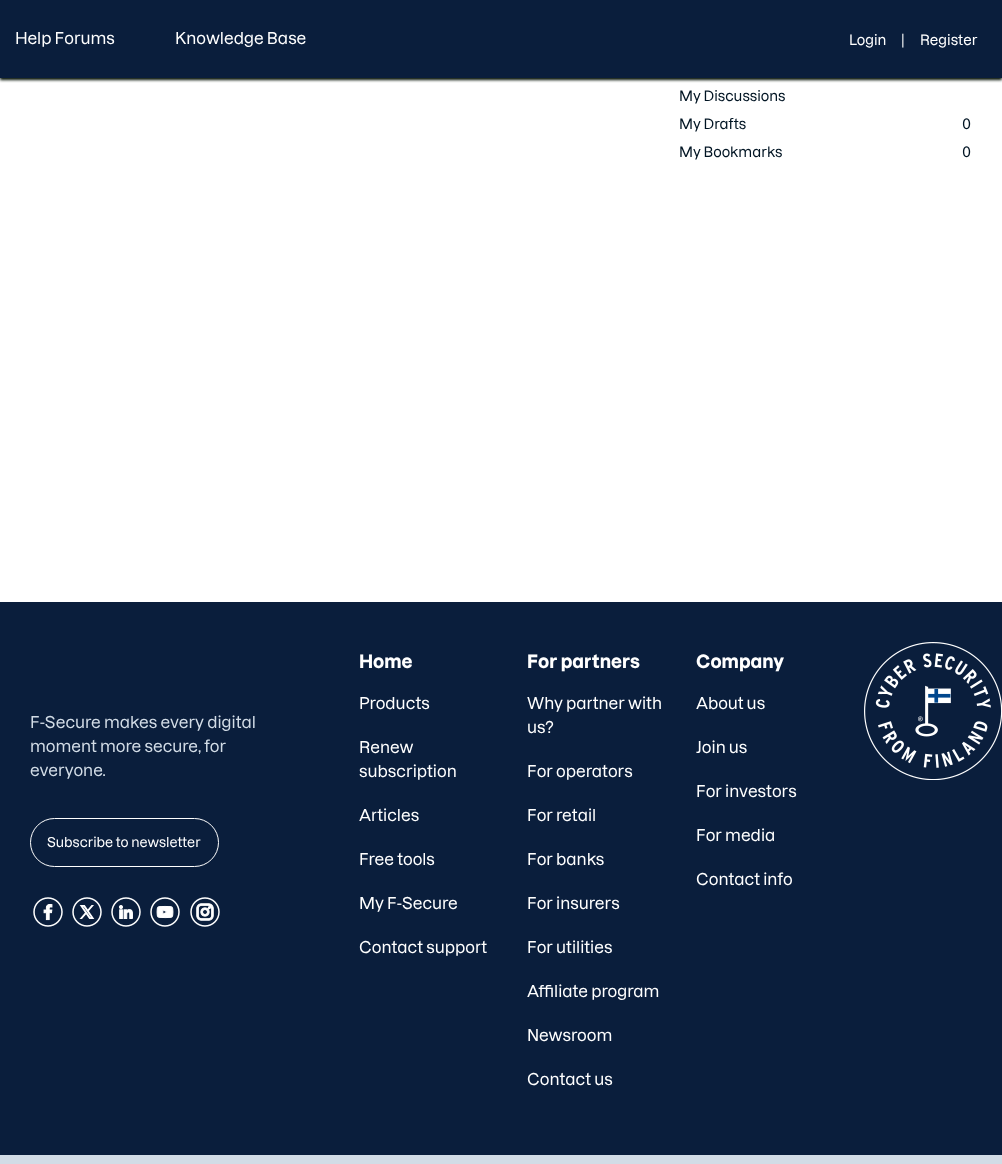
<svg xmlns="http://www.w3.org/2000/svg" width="1002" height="1164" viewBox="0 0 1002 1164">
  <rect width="100%" height="100%" fill="rgb(255,255,255)"/>
  <rect x="0" y="2" width="1002" height="78" fill="rgb(0,13,0)" filter="blur(1.5px)"/>
  <rect x="0" y="0" width="1002" height="78" fill="rgb(10,30,60)"/>
  <g font-family="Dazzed" font-size="16" font-weight="500" fill="rgb(255,255,255)">
    <text x="15" y="44">Help Forums</text>
    <text x="175" y="44">Knowledge Base</text>
  </g>
  <g font-family="Dazzed" font-size="14" font-weight="500" fill="rgb(255,255,255)">
    <text x="849" y="45">Login</text>
    <text x="901" y="45">|</text>
    <text x="920" y="45">Register</text>
  </g>
  <g font-family="Dazzed" font-size="14" font-weight="500" fill="rgb(0,20,35)">
    <text x="679" y="101">My Discussions</text>
    <text x="679" y="129">My Drafts</text>
    <text x="962" y="129">0</text>
    <text x="679" y="157">My Bookmarks</text>
    <text x="962" y="157">0</text>
  </g>
  <rect x="0" y="602" width="1002" height="553" fill="rgb(10,30,60)"/>
  <g font-family="Dazzed" font-size="16" font-weight="500" fill="rgb(210,220,230)">
    <text>
      <tspan x="30" y="728">F-Secure makes every digital</tspan>
      <tspan x="30" y="752">moment more secure, for</tspan>
      <tspan x="30" y="776">everyone.</tspan>
    </text>
  </g>
  <rect x="30.5" y="818.5" width="188" height="48" rx="24" fill="none" stroke="rgb(255,255,255)"/>
  <text x="47" y="847" font-family="Dazzed" font-size="13.25" font-weight="500" fill="rgb(255,255,255)">Subscribe to newsletter</text>
  <image x="33" y="897" width="30" height="30" href="pic1.png"/>
  <image x="72" y="897" width="30" height="30" href="pic2.png"/>
  <image x="111" y="897" width="30" height="30" href="pic3.png"/>
  <image x="150" y="897" width="30" height="30" href="pic4.png"/>
  <image x="190" y="897" width="30" height="30" href="pic5.png"/>
  <text x="359" y="668" font-family="Dazzed" font-size="18" font-weight="bold" fill="rgb(255,255,255)">Home</text>
  <g font-family="Dazzed" font-size="16" font-weight="500" fill="rgb(255,255,255)">
    <text x="359" y="709">Products</text>
    <text>
      <tspan x="359" y="753">Renew</tspan>
      <tspan x="359" y="777">subscription</tspan>
    </text>
    <text x="359" y="821">Articles</text>
    <text x="359" y="865">Free tools</text>
    <text x="359" y="909">My F-Secure</text>
    <text x="359" y="953">Contact support</text>
  </g>
  <text x="527" y="668" font-family="Dazzed" font-size="18" font-weight="bold" fill="rgb(255,255,255)">For partners</text>
  <g font-family="Dazzed" font-size="16" font-weight="500" fill="rgb(255,255,255)">
    <text>
      <tspan x="527" y="709">Why partner with</tspan>
      <tspan x="527" y="733">us?</tspan>
    </text>
    <text x="527" y="777">For operators</text>
    <text x="527" y="821">For retail</text>
    <text x="527" y="865">For banks</text>
    <text x="527" y="909">For insurers</text>
    <text x="527" y="953">For utilities</text>
    <text x="527" y="997">Affiliate program</text>
    <text x="527" y="1041">Newsroom</text>
    <text x="527" y="1085">Contact us</text>
  </g>
  <text x="696" y="668" font-family="Dazzed" font-size="18" font-weight="bold" fill="rgb(255,255,255)">Company</text>
  <g font-family="Dazzed" font-size="16" font-weight="500" fill="rgb(255,255,255)">
    <text x="696" y="709">About us</text>
    <text x="696" y="753">Join us</text>
    <text x="696" y="797">For investors</text>
    <text x="696" y="841">For media</text>
    <text x="696" y="885">Contact info</text>
  </g>
  <image x="864" y="642" width="138" height="138" href="pic6.png"/>
  <rect x="0" y="1155" width="1002" height="9" fill="rgb(210,220,230)"/>
</svg>
